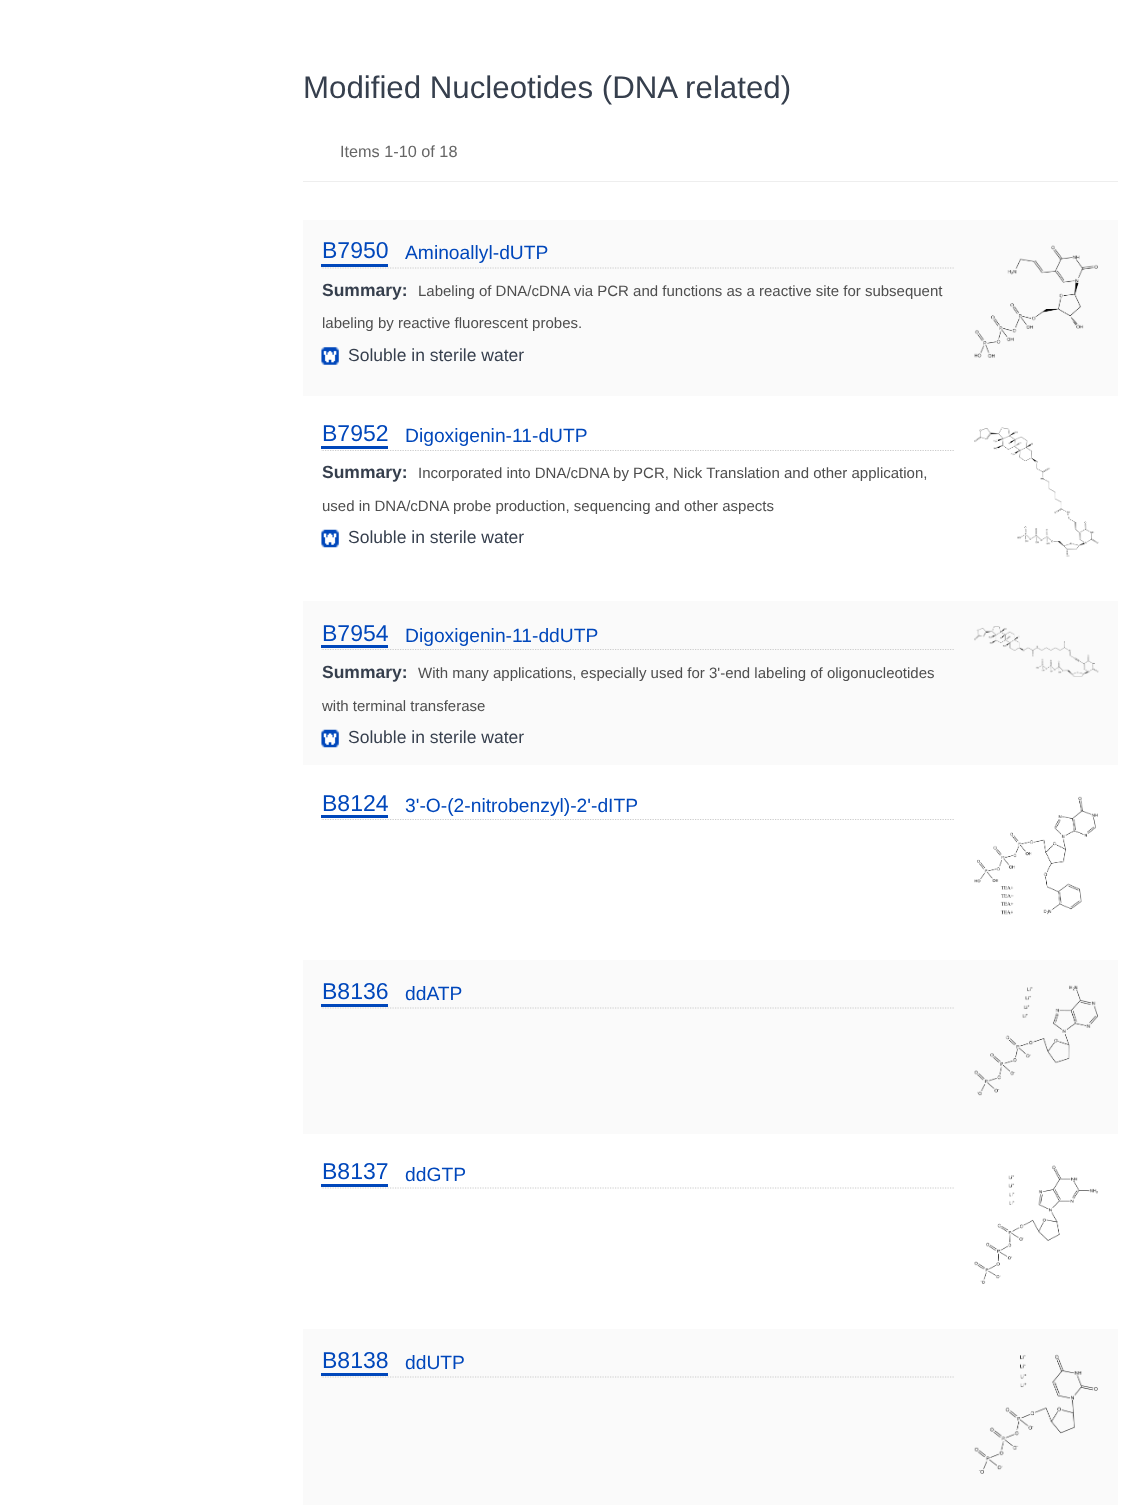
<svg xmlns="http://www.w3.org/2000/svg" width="1136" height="1505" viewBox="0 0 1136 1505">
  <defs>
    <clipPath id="clip1"><rect x="321" y="220" width="634" height="151"/></clipPath>
    <clipPath id="clip2"><rect x="321" y="403" width="634" height="151"/></clipPath>
    <clipPath id="clip3"><rect x="321" y="601" width="634" height="152"/></clipPath>
    <clipPath id="clip4"><rect x="321" y="771" width="634" height="58"/></clipPath>
    <clipPath id="clip5"><rect x="321" y="960" width="634" height="58"/></clipPath>
    <clipPath id="clip6"><rect x="321" y="1140" width="634" height="58"/></clipPath>
    <clipPath id="clip7"><rect x="321" y="1329" width="634" height="57"/></clipPath>
  </defs>
  <rect width="100%" height="100%" fill="rgb(255,255,255)"/>
  <text x="303" y="98" font-family="Liberation Sans" font-size="31.25" fill="rgb(54,63,77)">Modified Nucleotides (DNA related)</text>
  <rect x="303" y="181" width="815" height="1" fill="rgb(238,238,238)"/>
  <text x="340" y="157" font-family="Liberation Sans" font-size="16.25" fill="rgb(102,102,102)">Items 1-10 of 18</text>
  <rect x="303" y="220" width="815" height="176" fill="rgb(250,250,250)"/>
  <g clip-path="url(#clip1)">
    <path d="M302.5 268H974" fill="none" stroke="rgb(204,204,204)" stroke-width="1.2" stroke-dasharray="1.25 1.25"/>
  </g>
  <rect x="321" y="264" width="67" height="3" fill="rgb(0,71,187)"/>
  <text x="322" y="258" font-family="Liberation Sans" font-size="23" fill="rgb(0,71,187)">B7950</text>
  <text x="405" y="259" font-family="Liberation Sans" font-size="19.25" fill="rgb(0,71,187)">Aminoallyl-dUTP</text>
  <text x="322" y="296" font-family="Liberation Sans" font-size="17.5" font-weight="bold" fill="rgb(54,63,77)">Summary:</text>
  <g font-family="Liberation Sans" font-size="15" fill="rgb(78,78,78)">
    <text x="418" y="296">Labeling of DNA/cDNA via PCR and functions as a reactive site for subsequent</text>
    <text x="322" y="328">labeling by reactive fluorescent probes.</text>
  </g>
  <image x="321" y="347" width="18" height="18" href="pic1.png"/>
  <text x="348" y="361" font-family="Liberation Sans" font-size="17.5" fill="rgb(54,63,77)">Soluble in sterile water</text>
  <image x="974" y="245" width="124" height="113" href="pic2.png"/>
  <g clip-path="url(#clip2)">
    <path d="M302.5 450.5H974" fill="none" stroke="rgb(204,204,204)" stroke-width="1.2" stroke-dasharray="1.25 1.25"/>
  </g>
  <rect x="321" y="446" width="67" height="3" fill="rgb(0,71,187)"/>
  <text x="322" y="441" font-family="Liberation Sans" font-size="23" fill="rgb(0,71,187)">B7952</text>
  <text x="405" y="442" font-family="Liberation Sans" font-size="19.25" fill="rgb(0,71,187)">Digoxigenin-11-dUTP</text>
  <text x="322" y="478" font-family="Liberation Sans" font-size="17.5" font-weight="bold" fill="rgb(54,63,77)">Summary:</text>
  <g font-family="Liberation Sans" font-size="15" fill="rgb(78,78,78)">
    <text x="418" y="478">Incorporated into DNA/cDNA by PCR, Nick Translation and other application,</text>
    <text x="322" y="511">used in DNA/cDNA probe production, sequencing and other aspects</text>
  </g>
  <image x="321" y="529" width="18" height="19" href="pic3.png"/>
  <text x="348" y="543" font-family="Liberation Sans" font-size="17.5" fill="rgb(54,63,77)">Soluble in sterile water</text>
  <image x="974" y="427" width="125" height="130" href="pic4.png"/>
  <rect x="303" y="601" width="815" height="164" fill="rgb(250,250,250)"/>
  <g clip-path="url(#clip3)">
    <path d="M302.5 649.5H974" fill="none" stroke="rgb(204,204,204)" stroke-width="1.2" stroke-dasharray="1.25 1.25"/>
  </g>
  <rect x="321" y="645" width="67" height="3" fill="rgb(0,71,187)"/>
  <text x="322" y="641" font-family="Liberation Sans" font-size="23" fill="rgb(0,71,187)">B7954</text>
  <text x="405" y="642" font-family="Liberation Sans" font-size="19.25" fill="rgb(0,71,187)">Digoxigenin-11-ddUTP</text>
  <text x="322" y="678" font-family="Liberation Sans" font-size="17.5" font-weight="bold" fill="rgb(54,63,77)">Summary:</text>
  <g font-family="Liberation Sans" font-size="15" fill="rgb(78,78,78)">
    <text x="418" y="678">With many applications, especially used for 3'-end labeling of oligonucleotides</text>
    <text x="322" y="711">with terminal transferase</text>
  </g>
  <image x="321" y="729" width="18" height="19" href="pic5.png"/>
  <text x="348" y="743" font-family="Liberation Sans" font-size="17.5" fill="rgb(54,63,77)">Soluble in sterile water</text>
  <image x="974" y="626" width="125" height="51" href="pic6.png"/>
  <g clip-path="url(#clip4)">
    <path d="M302.5 819.5H974" fill="none" stroke="rgb(204,204,204)" stroke-width="1.2" stroke-dasharray="1.25 1.25"/>
  </g>
  <rect x="321" y="815" width="67" height="3" fill="rgb(0,71,187)"/>
  <text x="322" y="811" font-family="Liberation Sans" font-size="23" fill="rgb(0,71,187)">B8124</text>
  <text x="405" y="812" font-family="Liberation Sans" font-size="19.25" fill="rgb(0,71,187)">3'-O-(2-nitrobenzyl)-2'-dITP</text>
  <image x="974" y="796" width="124" height="119" href="pic7.png"/>
  <rect x="303" y="960" width="815" height="174" fill="rgb(250,250,250)"/>
  <g clip-path="url(#clip5)">
    <path d="M302.5 1008H974" fill="none" stroke="rgb(204,204,204)" stroke-width="1.2" stroke-dasharray="1.25 1.25"/>
  </g>
  <rect x="321" y="1004" width="67" height="3" fill="rgb(0,71,187)"/>
  <text x="322" y="999" font-family="Liberation Sans" font-size="23" fill="rgb(0,71,187)">B8136</text>
  <text x="405" y="1000" font-family="Liberation Sans" font-size="19.25" fill="rgb(0,71,187)">ddATP</text>
  <image x="974" y="985" width="124" height="111" href="pic8.png"/>
  <g clip-path="url(#clip6)">
    <path d="M302.5 1188H974" fill="none" stroke="rgb(204,204,204)" stroke-width="1.2" stroke-dasharray="1.25 1.25"/>
  </g>
  <rect x="321" y="1184" width="67" height="3" fill="rgb(0,71,187)"/>
  <text x="322" y="1179" font-family="Liberation Sans" font-size="23" fill="rgb(0,71,187)">B8137</text>
  <text x="405" y="1181" font-family="Liberation Sans" font-size="19.25" fill="rgb(0,71,187)">ddGTP</text>
  <image x="974" y="1165" width="124" height="119" href="pic9.png"/>
  <rect x="303" y="1329" width="815" height="176" fill="rgb(250,250,250)"/>
  <g clip-path="url(#clip7)">
    <path d="M302.5 1377H974" fill="none" stroke="rgb(204,204,204)" stroke-width="1.2" stroke-dasharray="1.25 1.25"/>
  </g>
  <rect x="321" y="1373" width="67" height="3" fill="rgb(0,71,187)"/>
  <text x="322" y="1368" font-family="Liberation Sans" font-size="23" fill="rgb(0,71,187)">B8138</text>
  <text x="405" y="1369" font-family="Liberation Sans" font-size="19.25" fill="rgb(0,71,187)">ddUTP</text>
  <image x="974" y="1354" width="124" height="120" href="pic10.png"/>
</svg>
